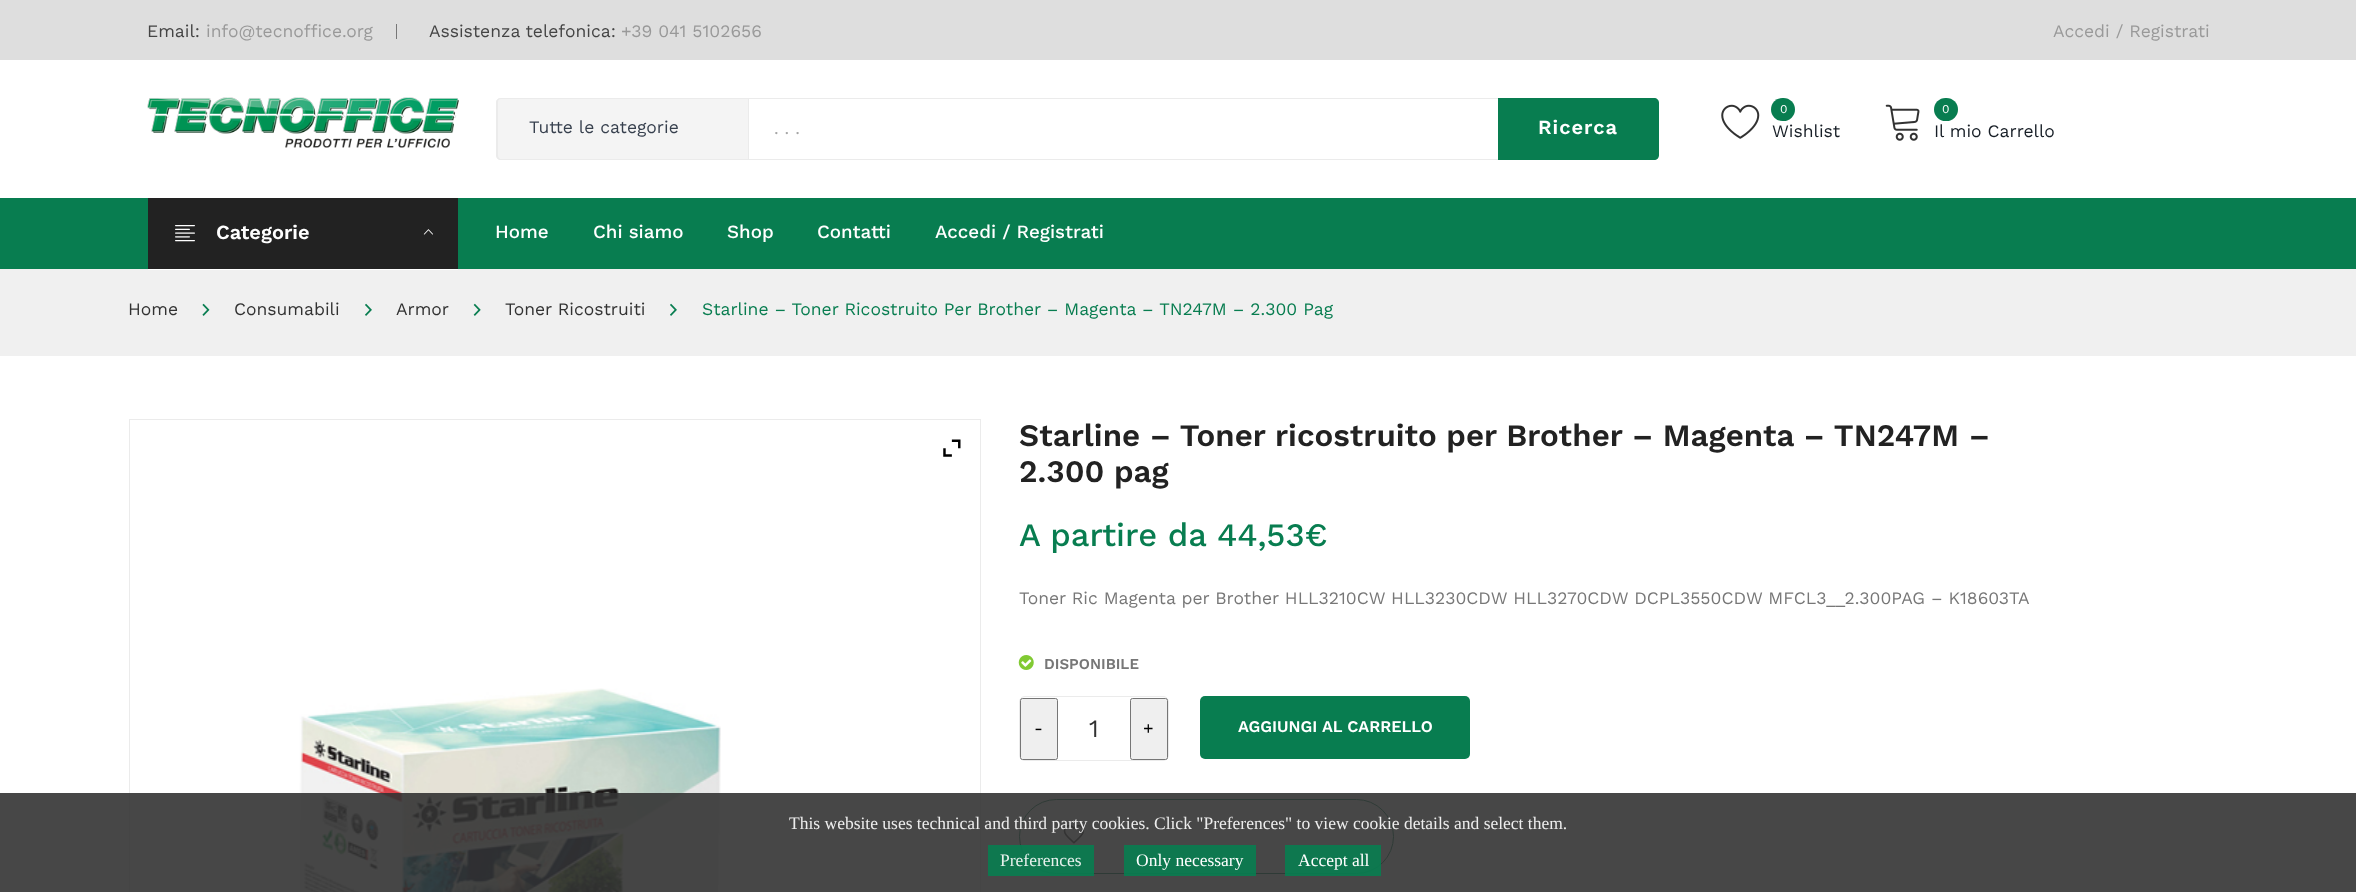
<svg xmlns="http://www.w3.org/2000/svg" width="2356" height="892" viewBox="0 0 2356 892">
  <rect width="100%" height="100%" fill="rgb(255,255,255)"/>
  <rect x="0" y="0" width="2356" height="60" fill="rgb(222,222,222)"/>
  <text x="147" y="37" font-family="Work Sans" font-size="17.5" fill="rgb(68,68,68)">Email:</text>
  <text x="206" y="37" font-family="Work Sans" font-size="17.5" fill="rgb(153,153,153)">info@tecnoffice.org</text>
  <rect x="396" y="24" width="1" height="15" fill="rgb(119,119,119)"/>
  <text x="429" y="37" font-family="Work Sans" font-size="17.5" fill="rgb(68,68,68)">Assistenza telefonica:</text>
  <g font-family="Work Sans" font-size="17.5" fill="rgb(153,153,153)">
    <text x="621" y="37">+39 041 5102656</text>
    <text x="2053" y="37">Accedi / Registrati</text>
  </g>
  <image x="147" y="97" width="312" height="51" href="pic1.png"/>
  <path d="M501 98H748V160H501C498 160 496 158 496 155V103C496 100 498 98 501 98Z" fill="rgb(244,244,244)"/>
  <path d="M501 98H748V160H501C498 160 496 158 496 155V102C496 100 498 98 501 98ZM501 99H748V159H501C499 159 498 157 498 155V102C498 100 499 99 501 99Z" fill="rgb(235,235,235)" fill-rule="evenodd"/>
  <text x="529" y="133" font-family="Work Sans" font-size="17.5" fill="rgb(54,63,77)">Tutte le categorie</text>
  <rect x="748" y="98" width="750" height="1" fill="rgb(235,235,235)"/>
  <rect x="748" y="159" width="750" height="1" fill="rgb(235,235,235)"/>
  <rect x="748" y="98" width="1" height="62" fill="rgb(235,235,235)"/>
  <text x="774" y="134" font-family="Work Sans" font-size="17.5" fill="rgb(164,164,164)">. . .</text>
  <path d="M1498 98H1654C1657 98 1659 100 1659 103V155C1659 158 1657 160 1654 160H1498Z" fill="rgb(8,125,80)"/>
  <text x="1538" y="134" font-family="Work Sans" font-size="20" font-weight="600" letter-spacing="1" fill="rgb(255,255,255)">Ricerca</text>
  <image x="1721" y="104" width="39" height="35" href="pic2.png"/>
  <rect x="1771" y="98" width="24" height="23" rx="11.5" fill="rgb(8,125,80)"/>
  <text x="1780" y="113" font-family="Work Sans" font-size="12" fill="rgb(255,255,255)">0</text>
  <text x="1772" y="137" font-family="Work Sans" font-size="17.5" fill="rgb(23,30,38)">Wishlist</text>
  <image x="1885" y="104" width="35" height="37" href="pic3.png"/>
  <rect x="1934" y="98" width="24" height="23" rx="11.5" fill="rgb(8,125,80)"/>
  <text x="1942" y="113" font-family="Work Sans" font-size="12" fill="rgb(255,255,255)">0</text>
  <text x="1934" y="137" font-family="Work Sans" font-size="17.5" fill="rgb(23,30,38)">Il mio Carrello</text>
  <rect x="0" y="198" width="2356" height="71" fill="rgb(8,125,80)"/>
  <rect x="148" y="198" width="310" height="71" fill="rgb(34,34,34)"/>
  <image x="175" y="225" width="20" height="17" href="pic4.png"/>
  <text x="216" y="239" font-family="Work Sans" font-size="20" font-weight="600" fill="rgb(255,255,255)">Categorie</text>
  <image x="423" y="229" width="10" height="6" href="pic5.png"/>
  <rect x="0" y="269" width="2356" height="87" fill="rgb(240,240,240)"/>
  <rect x="148" y="269" width="310" height="1" fill="rgb(255,255,255)"/>
  <g font-family="Work Sans" font-size="18.75" font-weight="500" fill="rgb(255,255,255)">
    <text x="495" y="238">Home</text>
    <text x="593" y="238">Chi siamo</text>
    <text x="727" y="238">Shop</text>
    <text x="817" y="238">Contatti</text>
    <text x="935" y="238">Accedi / Registrati</text>
  </g>
  <text x="128" y="315" font-family="Work Sans" font-size="17.5" fill="rgb(50,50,50)">Home</text>
  <image x="202" y="303" width="8" height="13" href="pic6.png"/>
  <text x="234" y="315" font-family="Work Sans" font-size="17.5" fill="rgb(50,50,50)">Consumabili</text>
  <image x="365" y="303" width="7" height="13" href="pic7.png"/>
  <text x="396" y="315" font-family="Work Sans" font-size="17.5" fill="rgb(50,50,50)">Armor</text>
  <image x="473" y="303" width="8" height="13" href="pic8.png"/>
  <text x="505" y="315" font-family="Work Sans" font-size="17.5" fill="rgb(50,50,50)">Toner Ricostruiti</text>
  <image x="670" y="303" width="7" height="13" href="pic7.png"/>
  <text x="702" y="315" font-family="Work Sans" font-size="17.5" fill="rgb(8,125,80)">Starline – Toner Ricostruito Per Brother – Magenta – TN247M – 2.300 Pag</text>
  <rect x="129.5" y="419.5" width="851" height="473" fill="none" stroke="rgb(235,235,235)"/>
  <image x="943" y="439" width="18" height="18" href="pic9.png"/>
  <image x="299" y="688" width="422" height="204" href="pic10.png"/>
  <g font-family="Work Sans" font-size="31.25" font-weight="600" fill="rgb(34,34,34)">
    <text>
      <tspan x="1019" y="446">Starline – Toner ricostruito per Brother – Magenta – TN247M –</tspan>
      <tspan x="1019" y="482">2.300 pag</tspan>
    </text>
  </g>
  <text x="1019" y="546" font-family="Work Sans" font-size="32.75" font-weight="500" fill="rgb(8,125,80)">A partire da 44,53€</text>
  <text x="1019" y="604" font-family="Work Sans" font-size="17.5" fill="rgb(119,119,119)">Toner Ric Magenta per Brother HLL3210CW HLL3230CDW HLL3270CDW DCPL3550CDW MFCL3__2.300PAG – K18603TA</text>
  <image x="1018" y="655" width="16" height="15" href="pic11.png"/>
  <text x="1044" y="669" font-family="Work Sans" font-size="15" font-weight="600" fill="rgb(119,119,119)">DISPONIBILE</text>
  <rect x="1019.5" y="696.5" width="149" height="64" rx="5.5" fill="none" stroke="rgb(235,235,235)"/>
  <rect x="1020.5" y="698.5" width="37" height="61" rx="2" fill="rgb(239,239,239)" stroke="rgb(118,118,118)"/>
  <text x="1034" y="734" font-family="Work Sans" font-size="17.5" fill="rgb(0,0,0)">-</text>
  <text x="1089" y="737" font-family="Work Sans" font-size="25" fill="rgb(50,50,50)">1</text>
  <rect x="1130.5" y="698.5" width="37" height="61" rx="2" fill="rgb(239,239,239)" stroke="rgb(118,118,118)"/>
  <text x="1143" y="734" font-family="Work Sans" font-size="17.5" fill="rgb(0,0,0)">+</text>
  <rect x="1200" y="696" width="270" height="63" rx="5" fill="rgb(8,125,80)"/>
  <text x="1238" y="732" font-family="Work Sans" font-size="16.25" font-weight="600" fill="rgb(255,255,255)">AGGIUNGI AL CARRELLO</text>
  <rect x="1019.5" y="799.5" width="374" height="74" rx="37" fill="none" stroke="rgb(8,125,80)"/>
  <image x="1063" y="825" width="22" height="19" href="pic12.png"/>
  <rect x="0" y="793" width="2356" height="99" fill="rgba(51,51,51,0.9)"/>
  <text x="789" y="829" font-family="Liberation Serif" font-size="17.5" fill="rgb(237,237,237)">This website uses technical and third party cookies. Click "Preferences" to view cookie details and select them.</text>
  <rect x="988" y="845" width="106" height="31" fill="rgba(8,125,80,0.9)"/>
  <text x="1000" y="866" font-family="Liberation Serif" font-size="17.5" fill="rgb(231,241,237)">Preferences</text>
  <rect x="1124" y="845" width="132" height="31" fill="rgba(8,125,80,0.9)"/>
  <text x="1136" y="866" font-family="Liberation Serif" font-size="17.5" fill="rgb(255,255,255)">Only necessary</text>
  <rect x="1285" y="845" width="96" height="31" fill="rgba(8,125,80,0.9)"/>
  <text x="1298" y="866" font-family="Liberation Serif" font-size="17.5" fill="rgb(255,255,255)">Accept all</text>
</svg>
